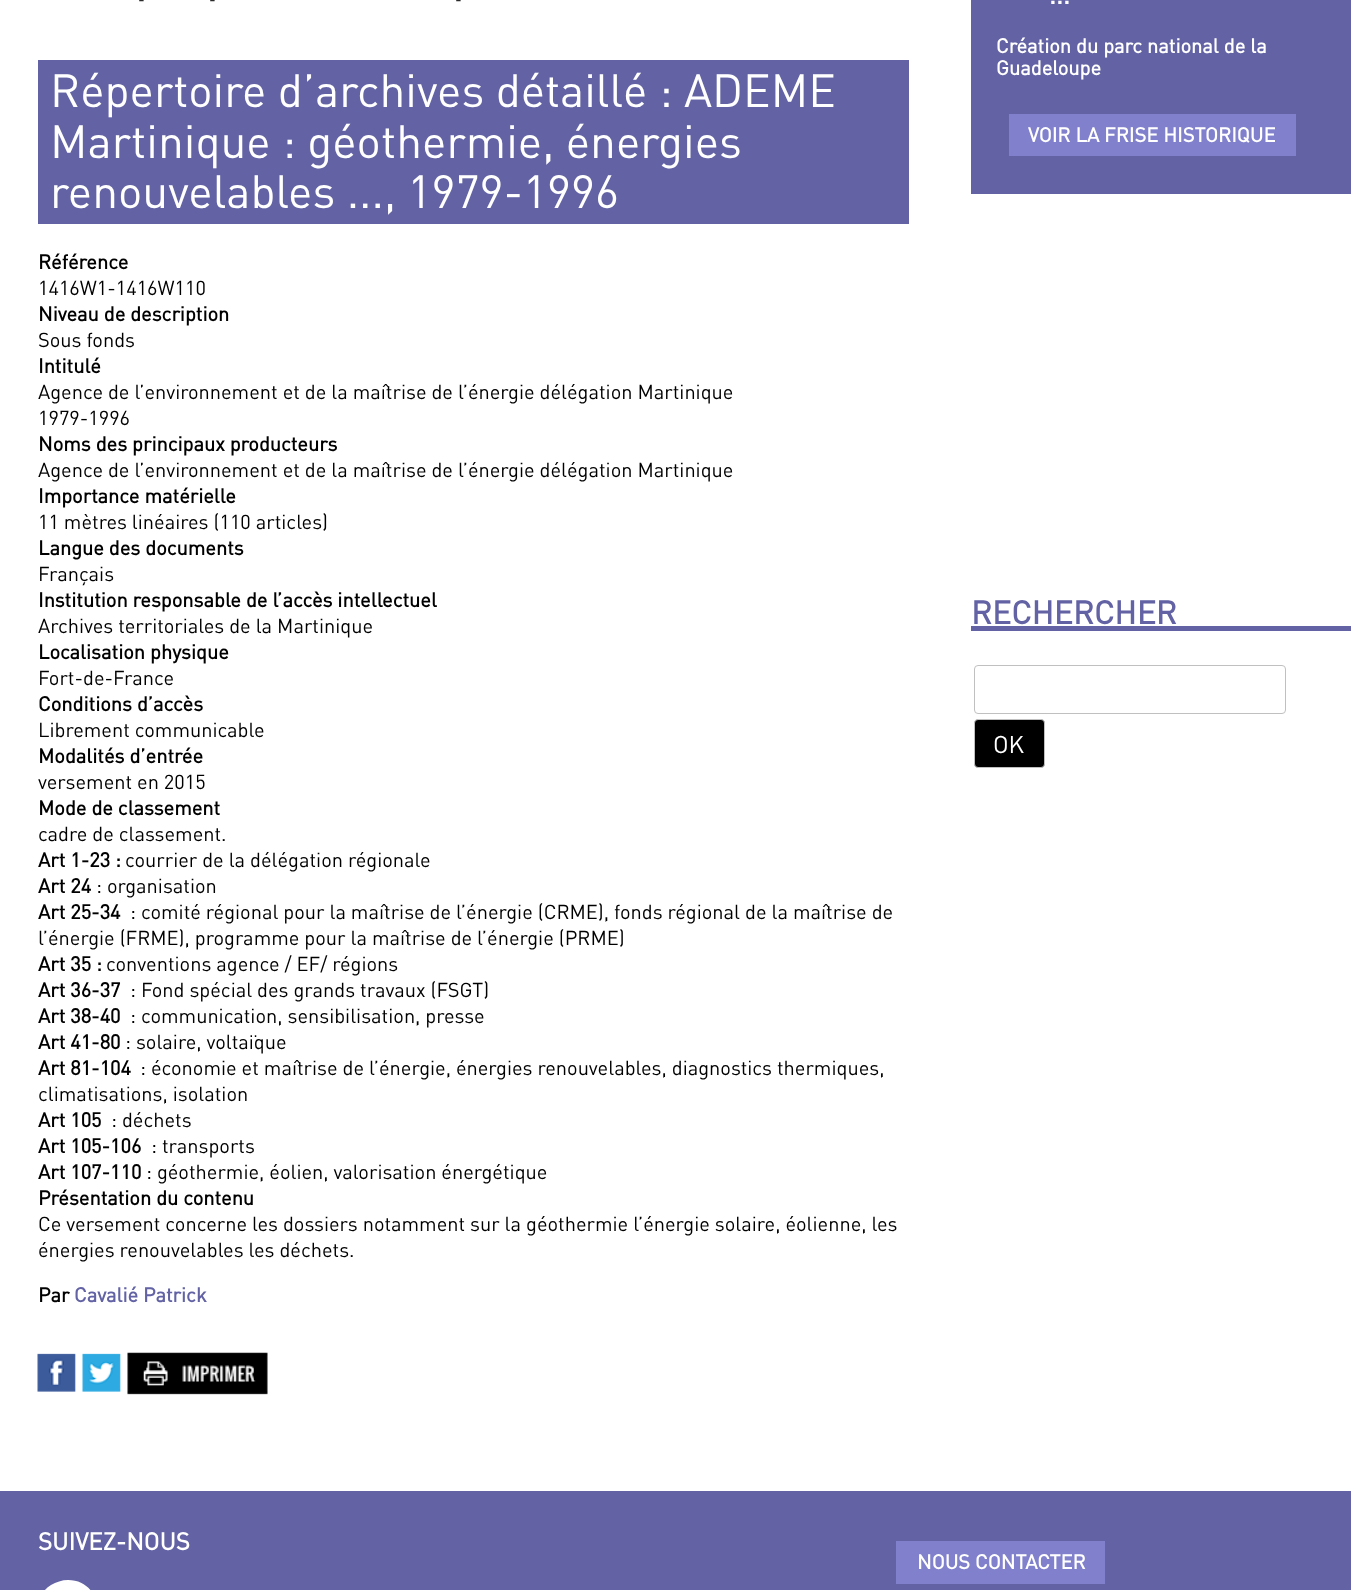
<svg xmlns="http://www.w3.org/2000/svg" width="1351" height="1590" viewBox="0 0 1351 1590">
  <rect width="100%" height="100%" fill="rgb(255,255,255)"/>
  <g font-family="DIN" font-size="16" fill="rgb(0,0,0)">
    <text x="138" y="5">-</text>
    <text x="209" y="5">-</text>
    <text x="455" y="5">-</text>
  </g>
  <rect x="38" y="60" width="871" height="164" fill="rgb(98,98,164)"/>
  <g font-family="DIN" font-size="46" fill="rgb(255,255,255)">
    <text>
      <tspan x="50" y="107">Répertoire d’archives détaillé : ADEME</tspan>
      <tspan x="50" y="158">Martinique : géothermie, énergies</tspan>
      <tspan x="50" y="208">renouvelables ..., 1979-1996</tspan>
    </text>
  </g>
  <text x="38" y="269" font-family="DIN" font-size="20" font-weight="bold" fill="rgb(0,0,0)">Référence</text>
  <text x="38" y="295" font-family="DIN" font-size="20" fill="rgb(0,0,0)">1416W1-1416W110</text>
  <text x="38" y="321" font-family="DIN" font-size="20" font-weight="bold" fill="rgb(0,0,0)">Niveau de description</text>
  <text x="38" y="347" font-family="DIN" font-size="20" fill="rgb(0,0,0)">Sous fonds</text>
  <text x="38" y="373" font-family="DIN" font-size="20" font-weight="bold" fill="rgb(0,0,0)">Intitulé</text>
  <g font-family="DIN" font-size="20" fill="rgb(0,0,0)">
    <text>
      <tspan x="38" y="399">Agence de l’environnement et de la maîtrise de l’énergie délégation Martinique</tspan>
      <tspan x="38" y="425">1979-1996</tspan>
    </text>
  </g>
  <text x="38" y="451" font-family="DIN" font-size="20" font-weight="bold" fill="rgb(0,0,0)">Noms des principaux producteurs</text>
  <text x="38" y="477" font-family="DIN" font-size="20" fill="rgb(0,0,0)">Agence de l’environnement et de la maîtrise de l’énergie délégation Martinique</text>
  <text x="38" y="503" font-family="DIN" font-size="20" font-weight="bold" fill="rgb(0,0,0)">Importance matérielle</text>
  <text x="38" y="529" font-family="DIN" font-size="20" fill="rgb(0,0,0)">11 mètres linéaires (110 articles)</text>
  <text x="38" y="555" font-family="DIN" font-size="20" font-weight="bold" fill="rgb(0,0,0)">Langue des documents</text>
  <text x="38" y="581" font-family="DIN" font-size="20" fill="rgb(0,0,0)">Français</text>
  <text x="38" y="607" font-family="DIN" font-size="20" font-weight="bold" fill="rgb(0,0,0)">Institution responsable de l’accès intellectuel</text>
  <text x="38" y="633" font-family="DIN" font-size="20" fill="rgb(0,0,0)">Archives territoriales de la Martinique</text>
  <text x="38" y="659" font-family="DIN" font-size="20" font-weight="bold" fill="rgb(0,0,0)">Localisation physique</text>
  <text x="38" y="685" font-family="DIN" font-size="20" fill="rgb(0,0,0)">Fort-de-France</text>
  <text x="38" y="711" font-family="DIN" font-size="20" font-weight="bold" fill="rgb(0,0,0)">Conditions d’accès</text>
  <text x="38" y="737" font-family="DIN" font-size="20" fill="rgb(0,0,0)">Librement communicable</text>
  <text x="38" y="763" font-family="DIN" font-size="20" font-weight="bold" fill="rgb(0,0,0)">Modalités d’entrée</text>
  <text x="38" y="789" font-family="DIN" font-size="20" fill="rgb(0,0,0)">versement en 2015</text>
  <text x="38" y="815" font-family="DIN" font-size="20" font-weight="bold" fill="rgb(0,0,0)">Mode de classement</text>
  <text x="38" y="841" font-family="DIN" font-size="20" fill="rgb(0,0,0)">cadre de classement.</text>
  <text x="38" y="867" font-family="DIN" font-size="20" font-weight="bold" fill="rgb(0,0,0)">Art 1-23 :</text>
  <text x="125" y="867" font-family="DIN" font-size="20" fill="rgb(0,0,0)">courrier de la délégation régionale</text>
  <text x="38" y="893" font-family="DIN" font-size="20" font-weight="bold" fill="rgb(0,0,0)">Art 24</text>
  <text x="96" y="893" font-family="DIN" font-size="20" fill="rgb(0,0,0)">: organisation</text>
  <text x="38" y="919" font-family="DIN" font-size="20" font-weight="bold" fill="rgb(0,0,0)">Art 25-34</text>
  <g font-family="DIN" font-size="20" fill="rgb(0,0,0)">
    <text x="130" y="919">: comité régional pour la maîtrise de l’énergie (CRME), fonds régional de la maîtrise de</text>
    <text x="38" y="945">l’énergie (FRME), programme pour la maîtrise de l’énergie (PRME)</text>
  </g>
  <text x="38" y="971" font-family="DIN" font-size="20" font-weight="bold" fill="rgb(0,0,0)">Art 35 :</text>
  <text x="106" y="971" font-family="DIN" font-size="20" fill="rgb(0,0,0)">conventions agence / EF/ régions</text>
  <text x="38" y="997" font-family="DIN" font-size="20" font-weight="bold" fill="rgb(0,0,0)">Art 36-37</text>
  <text x="130" y="997" font-family="DIN" font-size="20" fill="rgb(0,0,0)">: Fond spécial des grands travaux (FSGT)</text>
  <text x="38" y="1023" font-family="DIN" font-size="20" font-weight="bold" fill="rgb(0,0,0)">Art 38-40</text>
  <text x="130" y="1023" font-family="DIN" font-size="20" fill="rgb(0,0,0)">: communication, sensibilisation, presse</text>
  <text x="38" y="1049" font-family="DIN" font-size="20" font-weight="bold" fill="rgb(0,0,0)">Art 41-80</text>
  <text x="125" y="1049" font-family="DIN" font-size="20" fill="rgb(0,0,0)">: solaire, voltaïque</text>
  <text x="38" y="1075" font-family="DIN" font-size="20" font-weight="bold" fill="rgb(0,0,0)">Art 81-104</text>
  <g font-family="DIN" font-size="20" fill="rgb(0,0,0)">
    <text x="140" y="1075">: économie et maîtrise de l’énergie, énergies renouvelables, diagnostics thermiques,</text>
    <text x="38" y="1101">climatisations, isolation</text>
  </g>
  <text x="38" y="1127" font-family="DIN" font-size="20" font-weight="bold" fill="rgb(0,0,0)">Art 105</text>
  <text x="111" y="1127" font-family="DIN" font-size="20" fill="rgb(0,0,0)">: déchets</text>
  <text x="38" y="1153" font-family="DIN" font-size="20" font-weight="bold" fill="rgb(0,0,0)">Art 105-106</text>
  <text x="151" y="1153" font-family="DIN" font-size="20" fill="rgb(0,0,0)">: transports</text>
  <text x="38" y="1179" font-family="DIN" font-size="20" font-weight="bold" fill="rgb(0,0,0)">Art 107-110</text>
  <text x="146" y="1179" font-family="DIN" font-size="20" fill="rgb(0,0,0)">: géothermie, éolien, valorisation énergétique</text>
  <text x="38" y="1205" font-family="DIN" font-size="20" font-weight="bold" fill="rgb(0,0,0)">Présentation du contenu</text>
  <g font-family="DIN" font-size="20" fill="rgb(0,0,0)">
    <text>
      <tspan x="38" y="1231">Ce versement concerne les dossiers notamment sur la géothermie l’énergie solaire, éolienne, les</tspan>
      <tspan x="38" y="1257">énergies renouvelables les déchets.</tspan>
    </text>
  </g>
  <text x="38" y="1302" font-family="DIN" font-size="20" font-weight="bold" fill="rgb(0,0,0)">Par</text>
  <text x="74" y="1302" font-family="DIN" font-size="20" font-weight="bold" fill="rgb(98,98,164)">Cavalié Patrick</text>
  <image x="37" y="1353" width="39" height="39" href="pic1.png"/>
  <image x="82" y="1353" width="39" height="39" href="pic2.png"/>
  <image x="127" y="1352" width="141" height="43" href="pic3.png"/>
  <rect x="971" y="0" width="380" height="194" fill="rgb(98,98,164)"/>
  <text x="1049" y="4" font-family="DIN" font-size="26" font-weight="bold" fill="rgb(255,255,255)">...</text>
  <g font-family="DIN" font-size="20" font-weight="bold" fill="rgb(255,255,255)">
    <text>
      <tspan x="996" y="53">Création du parc national de la</tspan>
      <tspan x="996" y="75">Guadeloupe</tspan>
    </text>
  </g>
  <rect x="1009" y="114" width="287" height="42" fill="rgb(128,128,204)"/>
  <text x="1028" y="142" font-family="DIN" font-size="20" font-weight="bold" fill="rgb(255,255,255)">VOIR LA FRISE HISTORIQUE</text>
  <rect x="971" y="626" width="380" height="5" fill="rgb(98,98,164)"/>
  <text x="971" y="624" font-family="DIN" font-size="32" font-weight="bold" fill="rgb(98,98,164)">RECHERCHER</text>
  <rect x="974.5" y="665.5" width="311" height="48" rx="3.5" fill="none" stroke="rgb(192,192,192)"/>
  <rect x="974.5" y="719.5" width="70" height="48" rx="3.5" fill="rgb(0,0,0)" stroke="rgb(192,192,192)"/>
  <text x="993" y="753" font-family="DIN" font-size="24" fill="rgb(255,255,255)">OK</text>
  <rect x="0" y="1491" width="1351" height="99" fill="rgb(98,98,164)"/>
  <text x="38" y="1550" font-family="DIN" font-size="24" font-weight="bold" fill="rgb(255,255,255)">SUIVEZ-NOUS</text>
  <path d="M68 1580C62 1580 56 1582 51 1585C26 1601 38 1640 68 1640V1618H60V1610H68V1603C69 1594 79 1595 86 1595V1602C75 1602 75 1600 75 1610H85L83 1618H75V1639C109 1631 103 1580 68 1580Z" fill="rgb(255,255,255)"/>
  <rect x="896" y="1541" width="209" height="43" fill="rgb(128,128,204)"/>
  <text x="917" y="1569" font-family="DIN" font-size="20" font-weight="bold" fill="rgb(255,255,255)">NOUS CONTACTER</text>
</svg>
